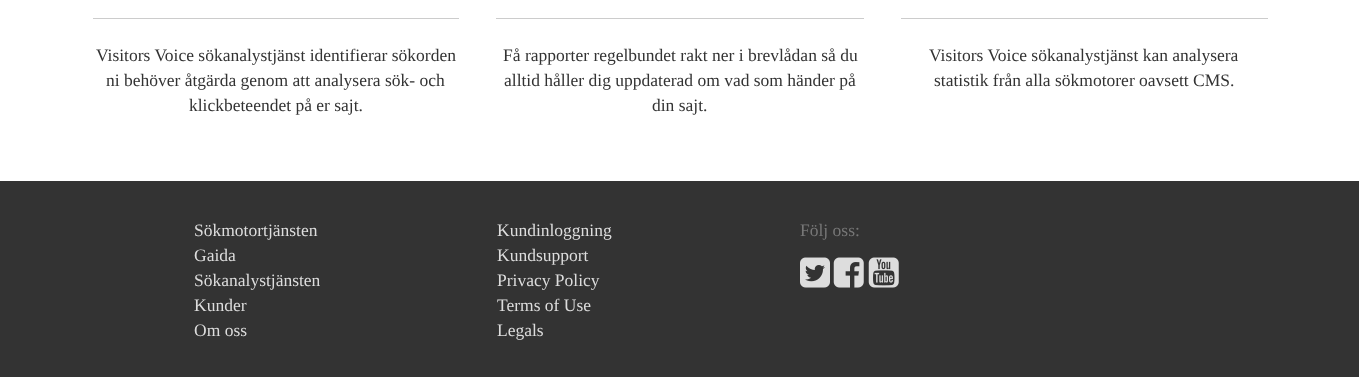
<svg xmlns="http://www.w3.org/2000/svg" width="1359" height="377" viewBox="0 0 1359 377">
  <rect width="100%" height="100%" fill="rgb(255,255,255)"/>
  <rect x="93" y="18" width="366" height="1" fill="rgb(204,204,204)"/>
  <g font-family="Liberation Serif" font-size="17.5" fill="rgb(51,51,51)">
    <text x="96" y="61">Visitors Voice sökanalystjänst identifierar sökorden</text>
    <text x="106" y="86">ni behöver åtgärda genom att analysera sök- och</text>
    <text x="189" y="111">klickbeteendet på er sajt.</text>
  </g>
  <rect x="496" y="18" width="368" height="1" fill="rgb(204,204,204)"/>
  <g font-family="Liberation Serif" font-size="17.5" fill="rgb(51,51,51)">
    <text x="503" y="61">Få rapporter regelbundet rakt ner i brevlådan så du</text>
    <text x="504" y="86">alltid håller dig uppdaterad om vad som händer på</text>
    <text x="652" y="111">din sajt.</text>
  </g>
  <rect x="901" y="18" width="367" height="1" fill="rgb(204,204,204)"/>
  <g font-family="Liberation Serif" font-size="17.5" fill="rgb(51,51,51)">
    <text x="929" y="61">Visitors Voice sökanalystjänst kan analysera</text>
    <text x="934" y="86">statistik från alla sökmotorer oavsett CMS.</text>
  </g>
  <rect x="0" y="181" width="1359" height="196" fill="rgb(51,51,51)"/>
  <g font-family="Liberation Serif" font-size="17.5" fill="rgb(221,221,221)">
    <text>
      <tspan x="194" y="236">Sökmotortjänsten</tspan>
      <tspan x="194" y="261">Gaida</tspan>
      <tspan x="194" y="286">Sökanalystjänsten</tspan>
      <tspan x="194" y="311">Kunder</tspan>
      <tspan x="194" y="336">Om oss</tspan>
    </text>
    <text>
      <tspan x="497" y="236">Kundinloggning</tspan>
      <tspan x="497" y="261">Kundsupport</tspan>
      <tspan x="497" y="286">Privacy Policy</tspan>
      <tspan x="497" y="311">Terms of Use</tspan>
      <tspan x="497" y="336">Legals</tspan>
    </text>
  </g>
  <text x="800" y="236" font-family="Liberation Serif" font-size="17.5" fill="rgb(119,119,119)">Följ oss:</text>
  <image x="800" y="257" width="30" height="31" href="pic1.png"/>
  <image x="833" y="257" width="31" height="31" href="pic2.png"/>
  <image x="868" y="257" width="31" height="31" href="pic3.png"/>
</svg>
